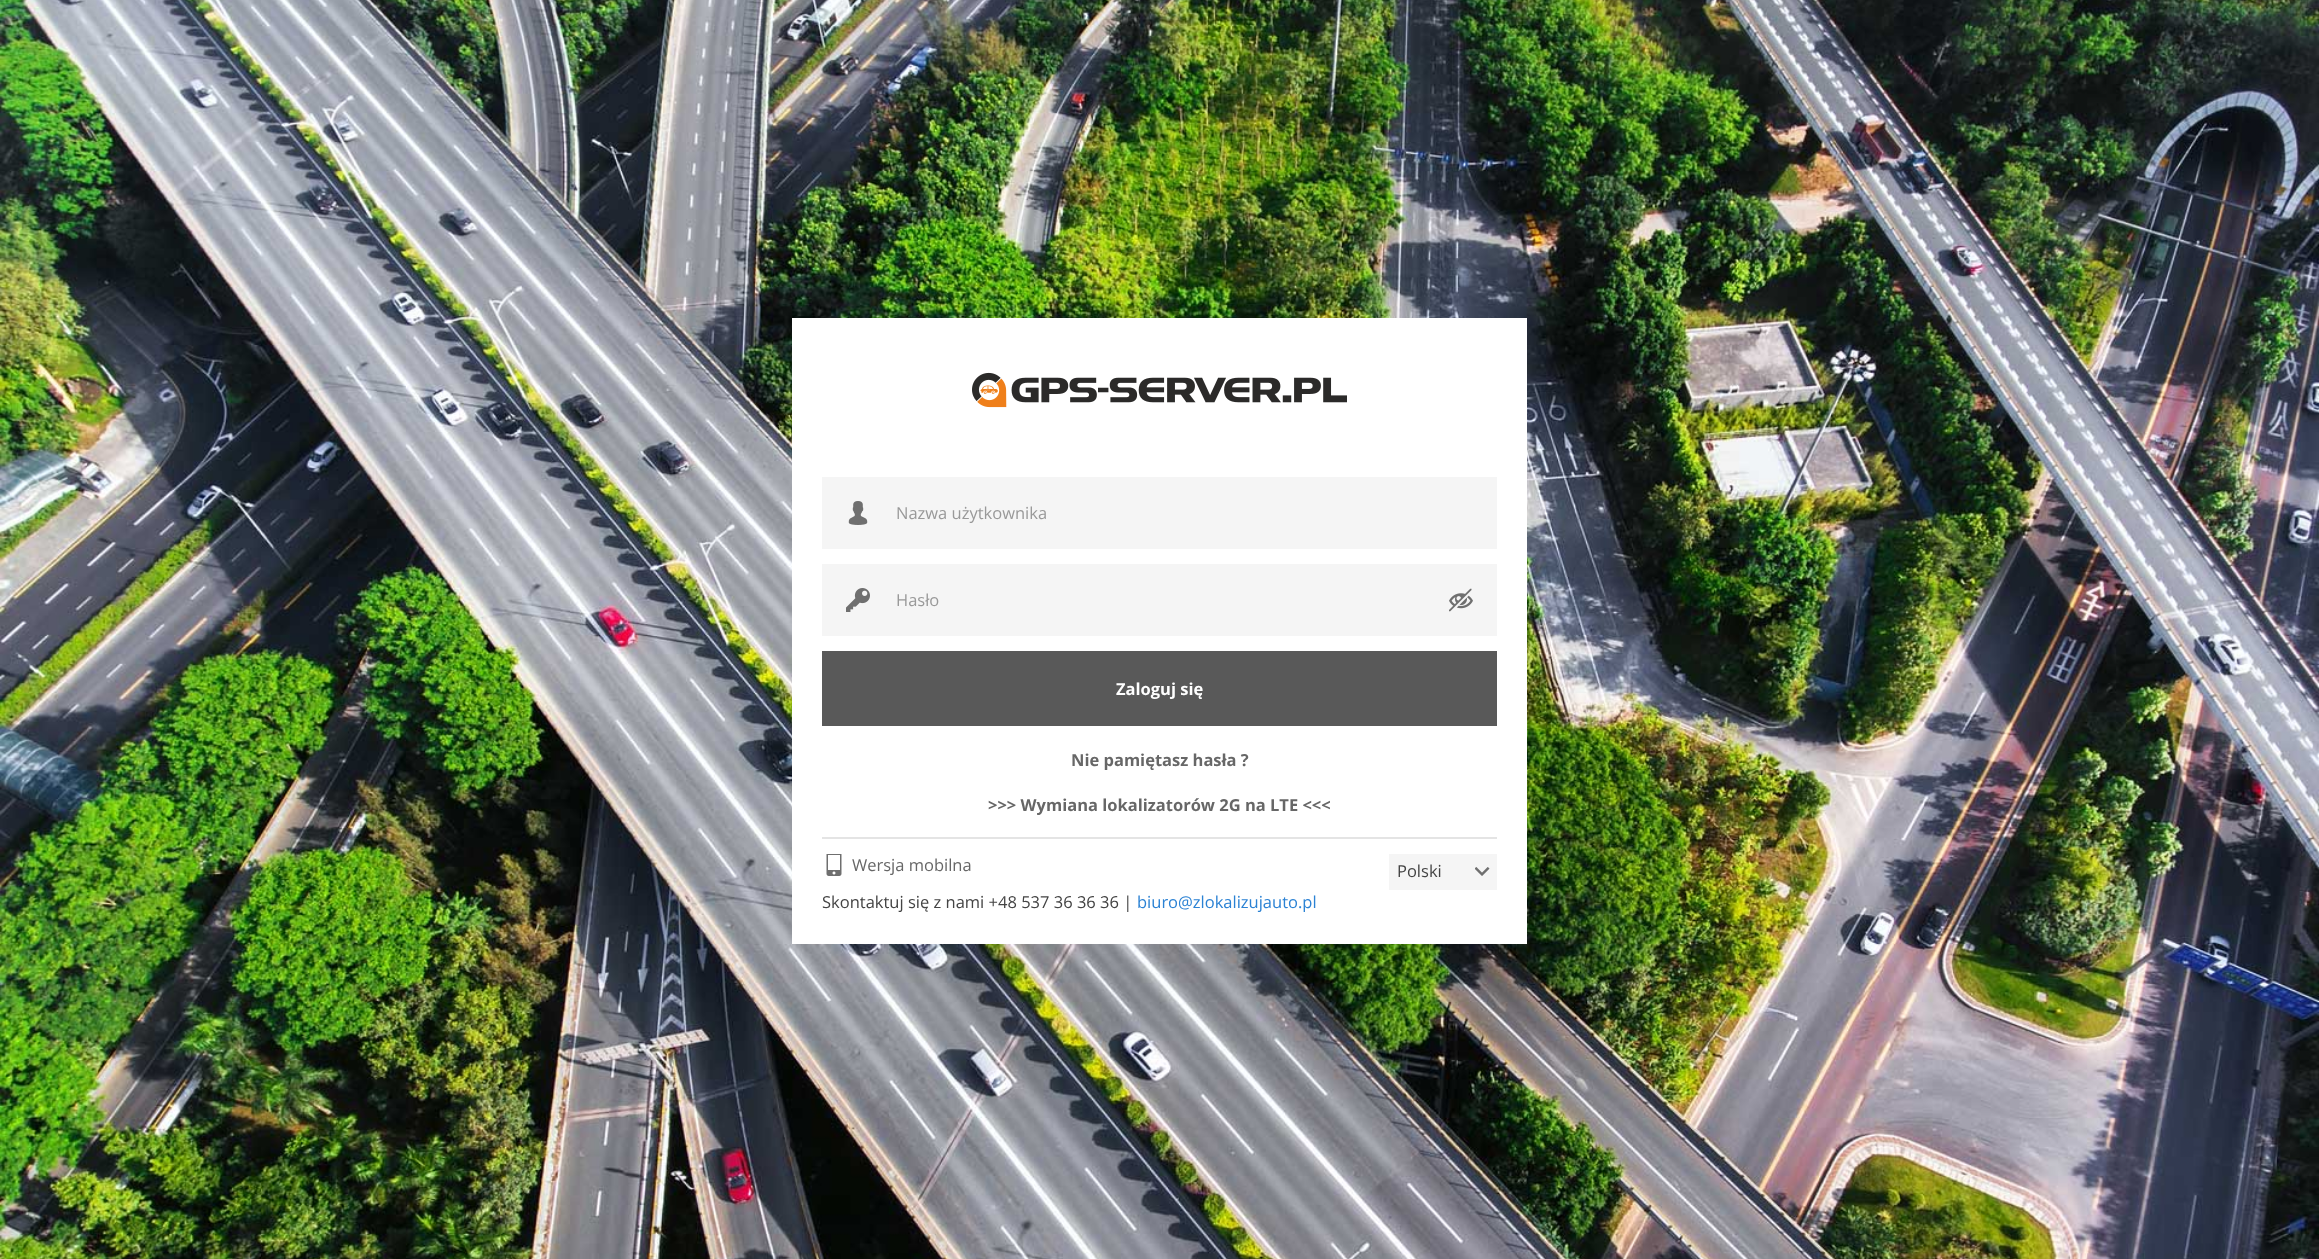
<svg xmlns="http://www.w3.org/2000/svg" width="2319" height="1259" viewBox="0 0 2319 1259">
  <rect width="100%" height="100%" fill="rgb(255,255,255)"/>
  <image x="0" y="0" width="2319" height="1259" href="pic1.png"/>
  <rect x="792" y="318" width="735" height="626" fill="rgb(255,255,255)"/>
  <image x="972" y="372" width="375" height="36" href="pic2.png"/>
  <rect x="822" y="477" width="675" height="72" fill="rgb(245,245,245)"/>
  <image x="848" y="501" width="20" height="24" href="pic3.png"/>
  <text x="896" y="519" font-family="Open Sans" font-size="16.5" fill="rgb(153,153,153)">Nazwa użytkownika</text>
  <rect x="822" y="564" width="675" height="72" fill="rgb(245,245,245)"/>
  <image x="846" y="588" width="24" height="24" href="pic4.png"/>
  <text x="896" y="606" font-family="Open Sans" font-size="16.5" fill="rgb(153,153,153)">Hasło</text>
  <image x="1449" y="588" width="24" height="24" href="pic5.png"/>
  <rect x="822" y="651" width="675" height="75" fill="rgb(89,89,89)"/>
  <text x="1116" y="695" font-family="Open Sans" font-size="16.5" font-weight="bold" fill="rgb(255,255,255)">Zaloguj się</text>
  <g font-family="Open Sans" font-size="16.5" font-weight="bold" fill="rgb(103,103,103)">
    <text x="1071" y="766">Nie pamiętasz hasła ?</text>
    <text x="988" y="811">&gt;&gt;&gt; Wymiana lokalizatorów 2G na LTE &lt;&lt;&lt;</text>
  </g>
  <rect x="822" y="837" width="675" height="2" fill="rgb(228,228,228)"/>
  <image x="826" y="854" width="16" height="22" href="pic6.png"/>
  <text x="852" y="871" font-family="Open Sans" font-size="16.5" fill="rgb(103,103,103)">Wersja mobilna</text>
  <rect x="1389" y="854" width="108" height="36" fill="rgb(245,245,245)"/>
  <text x="1397" y="877" font-family="Open Sans" font-size="16.5" fill="rgb(68,68,68)">Polski</text>
  <image x="1475" y="867" width="15" height="9" href="pic7.png"/>
  <text x="822" y="908" font-family="Open Sans" font-size="16.5" fill="rgb(68,68,68)">Skontaktuj się z nami +48 537 36 36 36 |</text>
  <text x="1137" y="908" font-family="Open Sans" font-size="16.5" fill="rgb(43,130,212)">biuro@zlokalizujauto.pl</text>
</svg>
